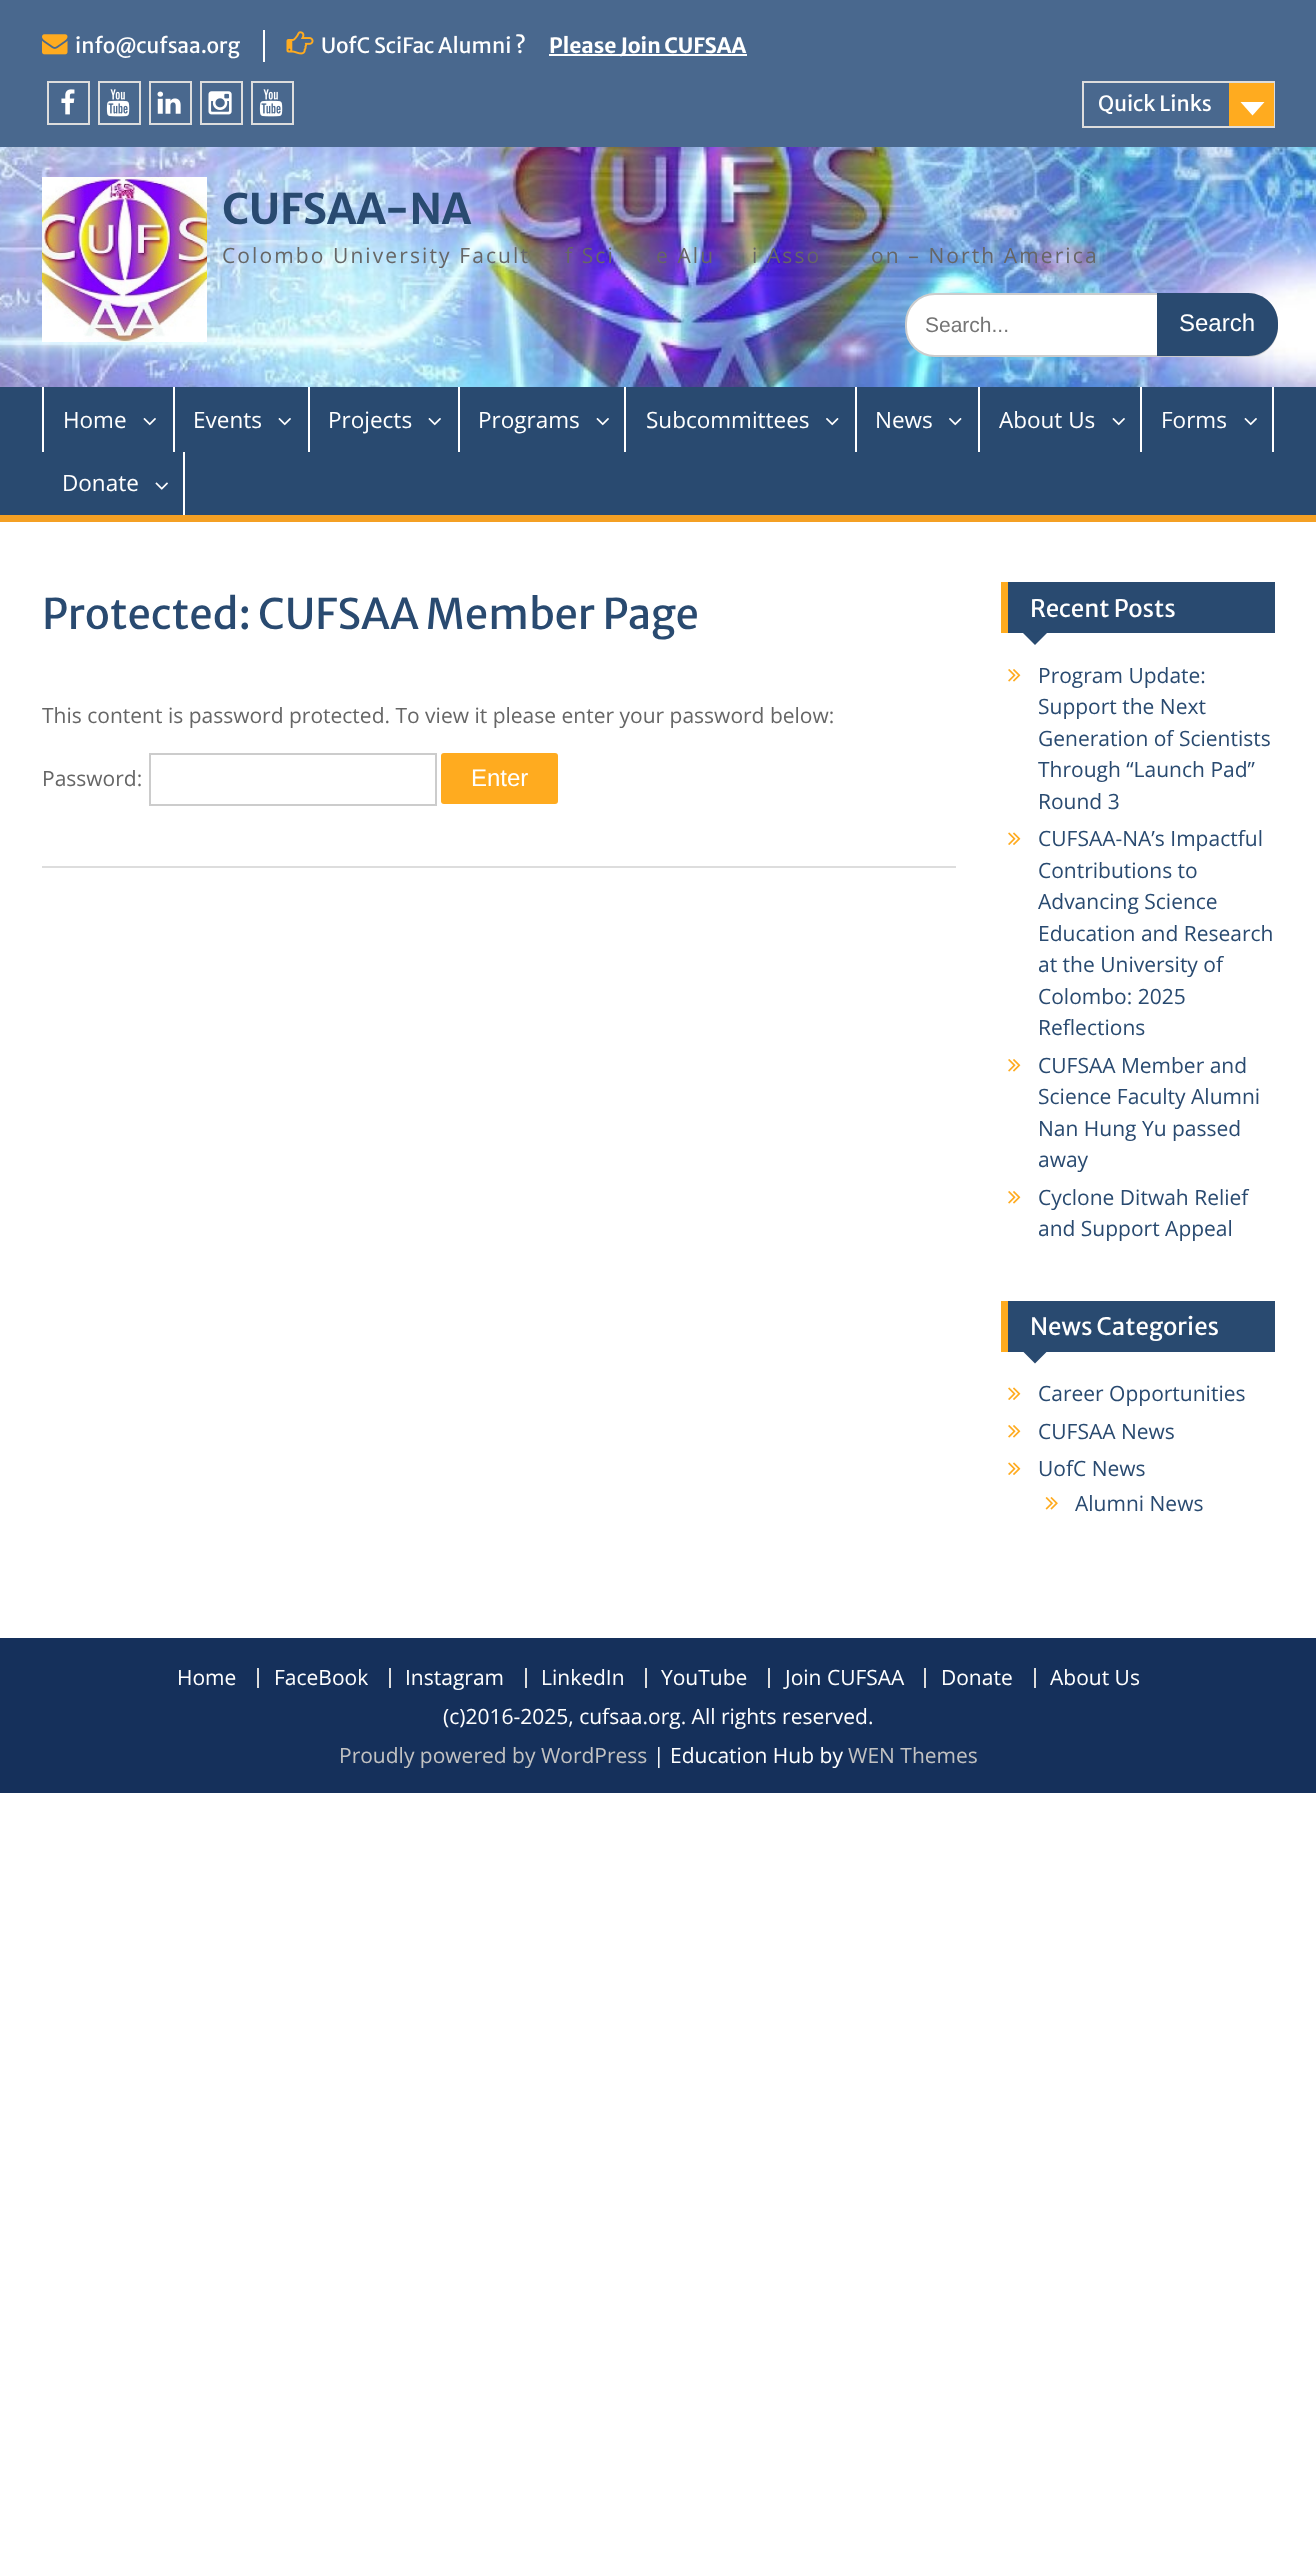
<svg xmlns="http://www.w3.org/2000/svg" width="1316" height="2561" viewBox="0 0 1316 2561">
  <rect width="100%" height="100%" fill="rgb(255,255,255)"/>
  <rect x="0" y="0" width="1316" height="147" fill="rgb(73,104,142)"/>
  <image x="42" y="34" width="26" height="21" href="pic1.png"/>
  <text x="75" y="53" font-family="Merriweather Sans" font-size="21" fill="rgb(255,255,255)">info@cufsaa.org</text>
  <rect x="263" y="30" width="2" height="32" fill="rgb(255,255,255)"/>
  <image x="286" y="31" width="28" height="24" href="pic2.png"/>
  <text x="321" y="53" font-family="Merriweather Sans" font-size="21" fill="rgb(255,255,255)">UofC SciFac Alumni ?</text>
  <rect x="549" y="54" width="198" height="2" fill="rgb(255,255,255)"/>
  <text x="549" y="53" font-family="Merriweather Sans" font-size="21" font-weight="bold" fill="rgb(255,255,255)">Please Join CUFSAA</text>
  <rect x="48" y="82" width="41" height="42" fill="none" stroke="rgb(221,221,221)" stroke-width="2"/>
  <image x="61" y="89" width="14" height="26" href="pic3.png"/>
  <rect x="99" y="82" width="41" height="42" fill="none" stroke="rgb(221,221,221)" stroke-width="2"/>
  <image x="106" y="89" width="24" height="28" href="pic4.png"/>
  <rect x="150" y="82" width="41" height="42" fill="none" stroke="rgb(221,221,221)" stroke-width="2"/>
  <image x="157" y="91" width="24" height="23" href="pic5.png"/>
  <rect x="201" y="82" width="41" height="42" fill="none" stroke="rgb(221,221,221)" stroke-width="2"/>
  <image x="208" y="91" width="24" height="24" href="pic6.png"/>
  <rect x="252" y="82" width="41" height="42" fill="none" stroke="rgb(221,221,221)" stroke-width="2"/>
  <image x="259" y="89" width="24" height="28" href="pic4.png"/>
  <rect x="1083" y="82" width="191" height="45" fill="none" stroke="rgb(221,221,221)" stroke-width="2"/>
  <text x="1098" y="111" font-family="Merriweather Sans" font-size="21" fill="rgb(255,255,255)">Quick Links</text>
  <rect x="1229" y="83" width="45" height="43" fill="rgb(255,171,31)"/>
  <path d="M1240.5 102H1264.5L1252.5 115.5Z" fill="rgb(255,255,255)"/>
  <image x="0" y="147" width="1316" height="240" href="pic7.png"/>
  <image x="42" y="177" width="165" height="165" href="pic8.png"/>
  <text x="222" y="224" font-family="Merriweather Sans" font-size="42" font-weight="bold" fill="rgb(41,74,112)">CUFSAA-NA</text>
  <g font-family="Open Sans" font-size="21" letter-spacing="2.1" fill="rgb(102,102,102)">
    <text x="222" y="263">Colombo University Facult</text>
    <text x="565" y="263">f Sci</text>
    <text x="656" y="263">e Alu</text>
    <text x="752" y="263">i Asso</text>
    <text x="871" y="263">on – North America</text>
  </g>
  <rect x="906" y="294" width="371" height="62" rx="29" fill="rgb(255,255,255)" stroke="rgb(204,204,204)" stroke-width="2"/>
  <text x="925" y="332" font-family="Liberation Sans" font-size="21" fill="rgb(117,117,117)">Search...</text>
  <path d="M1157 293H1248C1264.5 293 1278 306.5 1278 323V326C1278 342.5 1264.5 356 1248 356H1157Z" fill="rgb(41,74,112)"/>
  <text x="1179" y="331" font-family="Liberation Sans" font-size="24" fill="rgb(255,255,255)">Search</text>
  <rect x="0" y="387" width="1316" height="128" fill="rgb(41,74,112)"/>
  <rect x="0" y="515" width="1316" height="7" fill="rgb(244,160,36)"/>
  <rect x="173" y="387" width="2" height="65" fill="rgb(255,255,255)"/>
  <rect x="42" y="387" width="2" height="65" fill="rgb(255,255,255)"/>
  <text x="63" y="428" font-family="Open Sans" font-size="22.5" fill="rgb(255,255,255)">Home</text>
  <image x="143" y="418" width="13" height="8" href="pic9.png"/>
  <rect x="308" y="387" width="2" height="65" fill="rgb(255,255,255)"/>
  <text x="193" y="428" font-family="Open Sans" font-size="22.5" fill="rgb(255,255,255)">Events</text>
  <image x="278" y="418" width="13" height="8" href="pic9.png"/>
  <rect x="458" y="387" width="2" height="65" fill="rgb(255,255,255)"/>
  <text x="328" y="428" font-family="Open Sans" font-size="22.5" fill="rgb(255,255,255)">Projects</text>
  <image x="428" y="418" width="13" height="8" href="pic9.png"/>
  <rect x="624" y="387" width="2" height="65" fill="rgb(255,255,255)"/>
  <text x="478" y="428" font-family="Open Sans" font-size="22.5" fill="rgb(255,255,255)">Programs</text>
  <image x="596" y="418" width="13" height="8" href="pic9.png"/>
  <rect x="855" y="387" width="2" height="65" fill="rgb(255,255,255)"/>
  <text x="646" y="428" font-family="Open Sans" font-size="22.5" fill="rgb(255,255,255)">Subcommittees</text>
  <image x="826" y="418" width="13" height="8" href="pic10.png"/>
  <rect x="978" y="387" width="2" height="65" fill="rgb(255,255,255)"/>
  <text x="875" y="428" font-family="Open Sans" font-size="22.5" fill="rgb(255,255,255)">News</text>
  <image x="949" y="418" width="13" height="8" href="pic10.png"/>
  <rect x="1140" y="387" width="2" height="65" fill="rgb(255,255,255)"/>
  <text x="999" y="428" font-family="Open Sans" font-size="22.5" fill="rgb(255,255,255)">About Us</text>
  <image x="1112" y="418" width="13" height="8" href="pic9.png"/>
  <rect x="1272" y="387" width="2" height="65" fill="rgb(255,255,255)"/>
  <text x="1161" y="428" font-family="Open Sans" font-size="22.5" fill="rgb(255,255,255)">Forms</text>
  <image x="1244" y="418" width="13" height="8" href="pic9.png"/>
  <rect x="183" y="452" width="2" height="63" fill="rgb(255,255,255)"/>
  <text x="62" y="491" font-family="Open Sans" font-size="22.5" fill="rgb(255,255,255)">Donate</text>
  <image x="155" y="482" width="13" height="8" href="pic11.png"/>
  <rect x="42" y="866" width="914" height="2" fill="rgb(221,221,221)"/>
  <text x="42" y="629" font-family="Merriweather Sans" font-size="42" fill="rgb(41,74,112)">Protected: CUFSAA Member Page</text>
  <g font-family="Open Sans" font-size="21" fill="rgb(102,102,102)">
    <text x="42" y="723">This content is password protected. To view it please enter your password below:</text>
    <text x="42" y="786">Password:</text>
  </g>
  <rect x="150" y="754" width="286" height="51" fill="none" stroke="rgb(204,204,204)" stroke-width="2"/>
  <rect x="441" y="753" width="117" height="51" rx="3" fill="rgb(255,171,31)"/>
  <text x="471" y="786" font-family="Liberation Sans" font-size="24" fill="rgb(255,255,255)">Enter</text>
  <rect x="1008" y="582" width="267" height="51" fill="rgb(41,74,112)"/>
  <rect x="1001" y="582" width="7" height="51" fill="rgb(255,171,31)"/>
  <text x="1030" y="617" font-family="Merriweather Sans" font-size="24" fill="rgb(255,255,255)">Recent Posts</text>
  <path d="M1021.5 631.5H1048.5L1035 645Z" fill="rgb(41,74,112)"/>
  <image x="1008" y="669" width="13" height="13" href="pic12.png"/>
  <g font-family="Open Sans" font-size="21" fill="rgb(41,74,112)">
    <text>
      <tspan x="1038" y="683">Program Update:</tspan>
      <tspan x="1038" y="714">Support the Next</tspan>
      <tspan x="1038" y="746">Generation of Scientists</tspan>
      <tspan x="1038" y="777">Through “Launch Pad”</tspan>
      <tspan x="1038" y="809">Round 3</tspan>
    </text>
  </g>
  <image x="1008" y="832" width="13" height="13" href="pic13.png"/>
  <g font-family="Open Sans" font-size="21" fill="rgb(41,74,112)">
    <text>
      <tspan x="1038" y="846">CUFSAA-NA’s Impactful</tspan>
      <tspan x="1038" y="878">Contributions to</tspan>
      <tspan x="1038" y="909">Advancing Science</tspan>
      <tspan x="1038" y="941">Education and Research</tspan>
      <tspan x="1038" y="972">at the University of</tspan>
      <tspan x="1038" y="1004">Colombo: 2025</tspan>
      <tspan x="1038" y="1035">Reflections</tspan>
    </text>
  </g>
  <image x="1008" y="1059" width="13" height="13" href="pic12.png"/>
  <g font-family="Open Sans" font-size="21" fill="rgb(41,74,112)">
    <text>
      <tspan x="1038" y="1073">CUFSAA Member and</tspan>
      <tspan x="1038" y="1104">Science Faculty Alumni</tspan>
      <tspan x="1038" y="1136">Nan Hung Yu passed</tspan>
      <tspan x="1038" y="1167">away</tspan>
    </text>
  </g>
  <image x="1008" y="1191" width="13" height="13" href="pic12.png"/>
  <g font-family="Open Sans" font-size="21" fill="rgb(41,74,112)">
    <text>
      <tspan x="1038" y="1205">Cyclone Ditwah Relief</tspan>
      <tspan x="1038" y="1236">and Support Appeal</tspan>
    </text>
  </g>
  <rect x="1008" y="1301" width="267" height="51" fill="rgb(41,74,112)"/>
  <rect x="1001" y="1301" width="7" height="51" fill="rgb(255,171,31)"/>
  <text x="1030" y="1335" font-family="Merriweather Sans" font-size="24" fill="rgb(255,255,255)">News Categories</text>
  <path d="M1021.5 1350H1048.5L1035 1363.5Z" fill="rgb(41,74,112)"/>
  <image x="1008" y="1387" width="13" height="13" href="pic13.png"/>
  <text x="1038" y="1401" font-family="Open Sans" font-size="21" fill="rgb(41,74,112)">Career Opportunities</text>
  <image x="1008" y="1425" width="13" height="13" href="pic12.png"/>
  <text x="1038" y="1439" font-family="Open Sans" font-size="21" fill="rgb(41,74,112)">CUFSAA News</text>
  <image x="1008" y="1462" width="13" height="13" href="pic13.png"/>
  <text x="1038" y="1476" font-family="Open Sans" font-size="21" fill="rgb(41,74,112)">UofC News</text>
  <image x="1045" y="1497" width="13" height="13" href="pic14.png"/>
  <text x="1075" y="1511" font-family="Open Sans" font-size="21" fill="rgb(41,74,112)">Alumni News</text>
  <rect x="0" y="1638" width="1316" height="155" fill="rgb(21,48,91)"/>
  <text x="177" y="1685" font-family="Open Sans" font-size="21" fill="rgb(255,255,255)">Home</text>
  <rect x="257" y="1668" width="2" height="20" fill="rgb(221,221,221)"/>
  <text x="274" y="1685" font-family="Open Sans" font-size="21" fill="rgb(255,255,255)">FaceBook</text>
  <rect x="389" y="1668" width="2" height="20" fill="rgb(221,221,221)"/>
  <text x="405" y="1685" font-family="Open Sans" font-size="21" fill="rgb(255,255,255)">Instagram</text>
  <rect x="525" y="1668" width="2" height="20" fill="rgb(221,221,221)"/>
  <text x="541" y="1685" font-family="Open Sans" font-size="21" fill="rgb(255,255,255)">LinkedIn</text>
  <rect x="645" y="1668" width="2" height="20" fill="rgb(221,221,221)"/>
  <text x="661" y="1685" font-family="Open Sans" font-size="21" fill="rgb(255,255,255)">YouTube</text>
  <rect x="768" y="1668" width="2" height="20" fill="rgb(221,221,221)"/>
  <text x="785" y="1685" font-family="Open Sans" font-size="21" fill="rgb(255,255,255)">Join CUFSAA</text>
  <rect x="924" y="1668" width="2" height="20" fill="rgb(221,221,221)"/>
  <text x="941" y="1685" font-family="Open Sans" font-size="21" fill="rgb(255,255,255)">Donate</text>
  <rect x="1034" y="1668" width="2" height="20" fill="rgb(221,221,221)"/>
  <g font-family="Open Sans" font-size="21" fill="rgb(255,255,255)">
    <text x="1050" y="1685">About Us</text>
    <text x="443" y="1724">(c)2016-2025, cufsaa.org. All rights reserved.</text>
  </g>
  <text x="339" y="1763" font-family="Open Sans" font-size="21" fill="rgb(194,194,194)">Proudly powered by WordPress</text>
  <text x="653" y="1763" font-family="Open Sans" font-size="21" fill="rgb(255,255,255)">| Education Hub by</text>
  <text x="848" y="1763" font-family="Open Sans" font-size="21" fill="rgb(194,194,194)">WEN Themes</text>
</svg>
